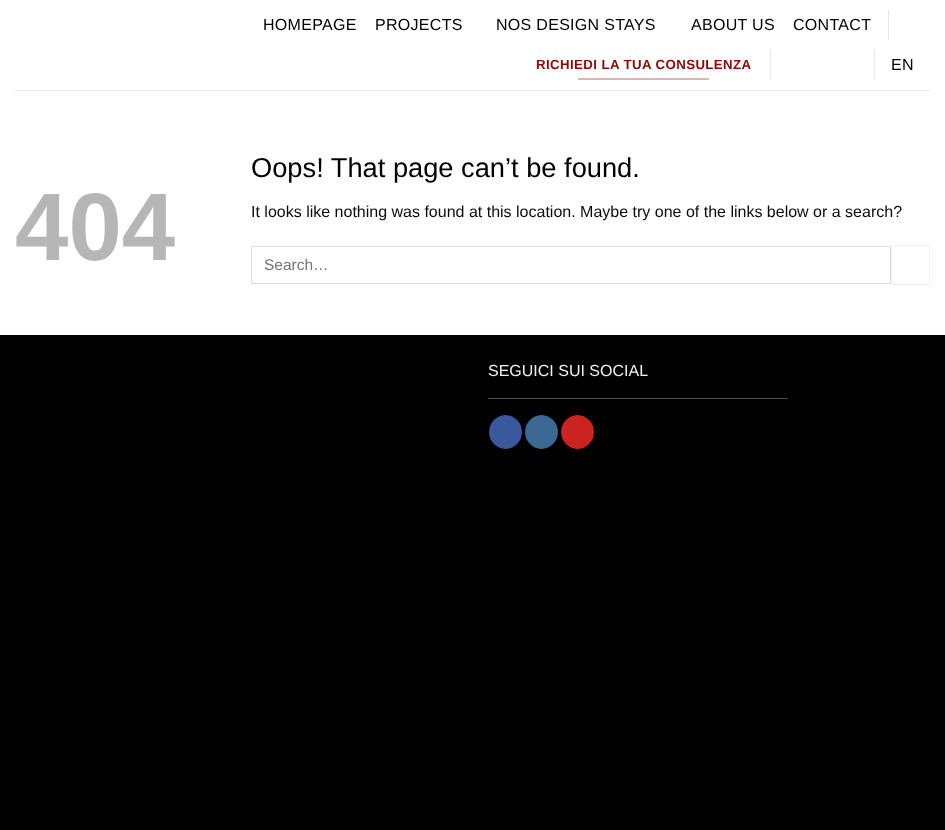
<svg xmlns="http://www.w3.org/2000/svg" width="945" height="830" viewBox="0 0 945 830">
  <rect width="100%" height="100%" fill="rgb(255,255,255)"/>
  <g font-family="Liberation Sans" font-size="16" letter-spacing="0.3" fill="rgb(0,0,0)">
    <text x="263" y="30">HOMEPAGE</text>
    <text x="375" y="30">PROJECTS</text>
    <text x="496" y="30">NOS DESIGN STAYS</text>
    <text x="691" y="30">ABOUT US</text>
    <text x="793" y="30">CONTACT</text>
  </g>
  <rect x="888" y="10" width="1" height="30" fill="rgb(230,230,230)"/>
  <text x="536" y="69" font-family="Liberation Sans" font-size="13.25" font-weight="bold" letter-spacing="0.4" fill="rgb(142,5,5)">RICHIEDI LA TUA CONSULENZA</text>
  <rect x="578" y="78" width="131" height="2" fill="rgb(221,180,180)"/>
  <rect x="770" y="50" width="1" height="30" fill="rgb(230,230,230)"/>
  <rect x="874" y="50" width="1" height="30" fill="rgb(230,230,230)"/>
  <text x="891" y="70" font-family="Liberation Sans" font-size="16" letter-spacing="0.3" fill="rgb(0,0,0)">EN</text>
  <rect x="15" y="90" width="915" height="1" fill="rgb(231,231,231)"/>
  <text x="15" y="260" font-family="Liberation Sans" font-size="96" font-weight="bold" fill="rgb(182,182,182)">404</text>
  <text x="251" y="177" font-family="Liberation Sans" font-size="27.25" fill="rgb(0,0,0)">Oops! That page can’t be found.</text>
  <text x="251" y="217" font-family="Liberation Sans" font-size="16" fill="rgb(10,10,10)">It looks like nothing was found at this location. Maybe try one of the links below or a search?</text>
  <rect x="251.5" y="246.5" width="639" height="37" fill="none" stroke="rgb(221,221,221)"/>
  <text x="264" y="270" font-family="Liberation Sans" font-size="15.5" fill="rgb(117,117,117)">Search…</text>
  <rect x="891.5" y="245.5" width="38" height="39" fill="none" stroke="rgb(242,242,242)"/>
  <rect x="0" y="335" width="945" height="495" fill="rgb(0,0,0)"/>
  <text x="488" y="376" font-family="Liberation Sans" font-size="16" fill="rgb(241,241,241)">SEGUICI SUI SOCIAL</text>
  <rect x="488" y="398" width="300" height="1" fill="rgb(77,77,77)"/>
  <rect x="489.5" y="415.5" width="32" height="33" rx="16" fill="rgb(58,88,157)" stroke="rgb(58,88,157)"/>
  <rect x="525.5" y="415.5" width="32" height="33" rx="16" fill="rgb(59,105,148)" stroke="rgb(59,105,148)"/>
  <rect x="561.5" y="415.5" width="32" height="33" rx="16" fill="rgb(203,35,32)" stroke="rgb(203,35,32)"/>
</svg>
